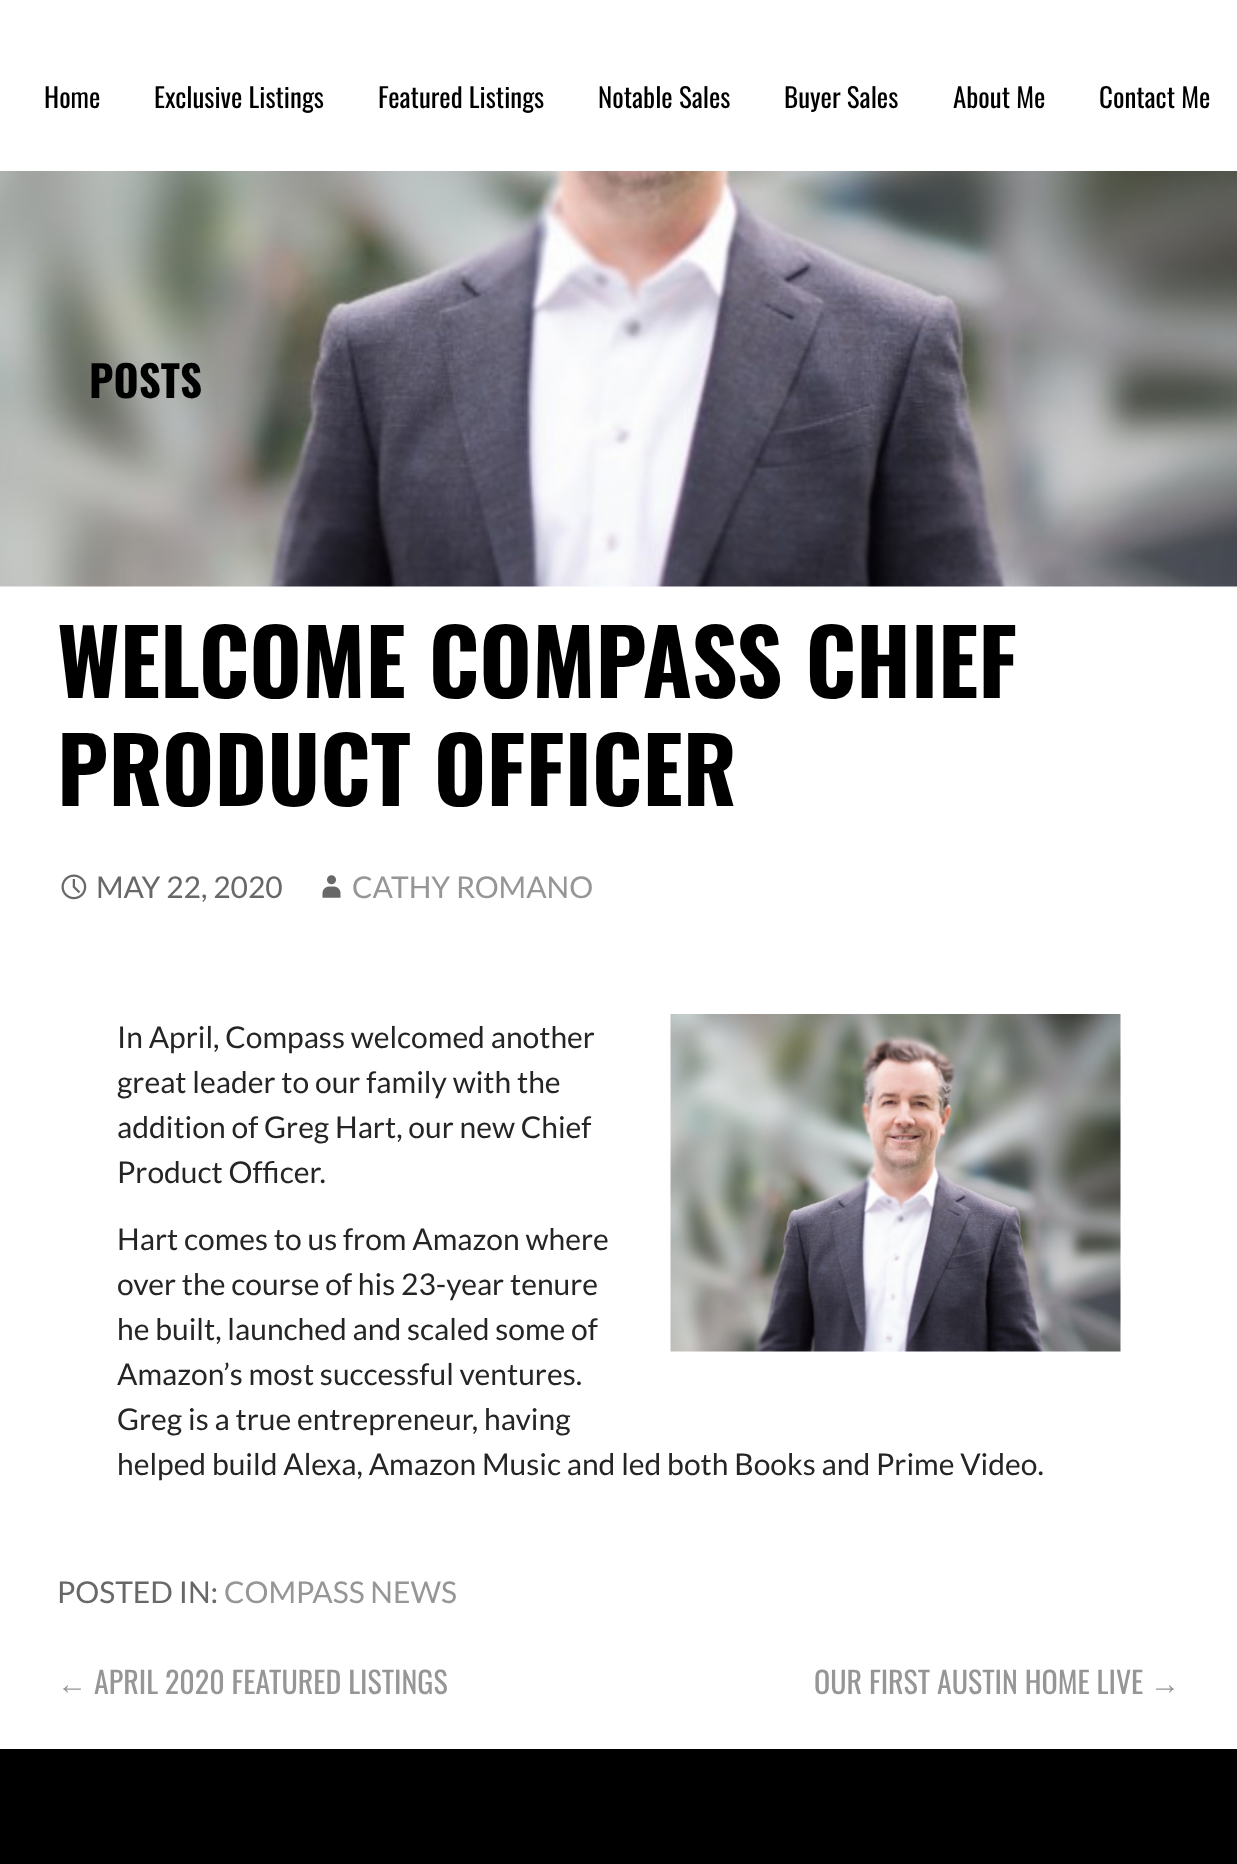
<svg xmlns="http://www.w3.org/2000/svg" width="1237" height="1864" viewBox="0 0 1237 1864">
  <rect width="100%" height="100%" fill="rgb(255,255,255)"/>
  <g font-family="Oswald" font-size="27" fill="rgb(0,0,0)">
    <text x="44" y="108">Home</text>
    <text x="154" y="108">Exclusive Listings</text>
    <text x="378" y="108">Featured Listings</text>
    <text x="598" y="108">Notable Sales</text>
    <text x="784" y="108">Buyer Sales</text>
    <text x="953" y="108">About Me</text>
    <text x="1099" y="108">Contact Me</text>
  </g>
  <image x="0" y="171" width="1237" height="416" href="pic1.png"/>
  <text x="89" y="398" font-family="Oswald" font-size="43" font-weight="bold" fill="rgb(0,0,0)">POSTS</text>
  <g font-family="Oswald" font-size="90" font-weight="bold" fill="rgb(0,0,0)">
    <text>
      <tspan x="57" y="698">WELCOME COMPASS CHIEF</tspan>
      <tspan x="57" y="806">PRODUCT OFFICER</tspan>
    </text>
  </g>
  <image x="61" y="874" width="26" height="26" href="pic2.png"/>
  <text x="96" y="898" font-family="Lato" font-size="30" fill="rgb(104,104,104)">MAY 22, 2020</text>
  <image x="322" y="875" width="19" height="23" href="pic3.png"/>
  <text x="352" y="898" font-family="Lato" font-size="30" fill="rgb(150,150,150)">CATHY ROMANO</text>
  <text x="117" y="1048" font-family="Lato" font-size="30" fill="rgb(37,37,37)">In April, Compass welcomed another</text>
  <image x="670" y="1014" width="451" height="338" href="pic4.png"/>
  <g font-family="Lato" font-size="30" fill="rgb(37,37,37)">
    <text>
      <tspan x="117" y="1093">great leader to our family with the</tspan>
      <tspan x="117" y="1138">addition of Greg Hart, our new Chief</tspan>
      <tspan x="117" y="1183">Product Officer.</tspan>
    </text>
    <text>
      <tspan x="117" y="1250">Hart comes to us from Amazon where</tspan>
      <tspan x="117" y="1295">over the course of his 23-year tenure</tspan>
      <tspan x="117" y="1340">he built, launched and scaled some of</tspan>
      <tspan x="117" y="1385">Amazon’s most successful ventures.</tspan>
      <tspan x="117" y="1430">Greg is a true entrepreneur, having</tspan>
      <tspan x="117" y="1475">helped build Alexa, Amazon Music and led both Books and Prime Video.</tspan>
    </text>
  </g>
  <text x="57" y="1603" font-family="Lato" font-size="30" fill="rgb(104,104,104)">POSTED IN:</text>
  <text x="224" y="1603" font-family="Lato" font-size="30" fill="rgb(150,150,150)">COMPASS NEWS</text>
  <text x="57" y="1694" font-family="Liberation Serif" font-size="30" fill="rgb(150,150,150)">←</text>
  <g font-family="Oswald" font-size="30" fill="rgb(150,150,150)">
    <text x="94" y="1694">APRIL 2020 FEATURED LISTINGS</text>
    <text x="814" y="1694">OUR FIRST AUSTIN HOME LIVE</text>
  </g>
  <text x="1150" y="1694" font-family="Liberation Serif" font-size="30" fill="rgb(150,150,150)">→</text>
  <rect x="0" y="1749" width="1237" height="115" fill="rgb(0,0,0)"/>
</svg>
